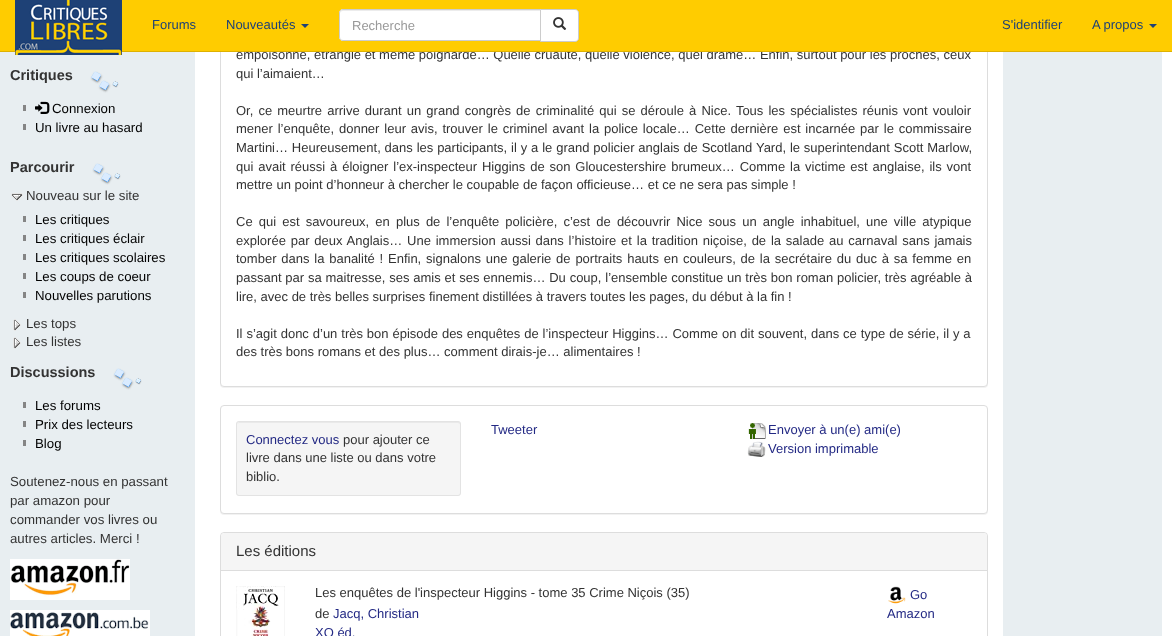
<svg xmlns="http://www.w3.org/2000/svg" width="1172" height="636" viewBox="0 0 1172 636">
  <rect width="100%" height="100%" fill="rgb(255,255,255)"/>
  <rect x="220" y="-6" width="768" height="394" rx="4" fill="rgba(0,0,0,0.05)" filter="blur(0.5px)"/>
  <rect x="220.5" y="-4.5" width="767" height="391" rx="3.5" fill="rgb(255,255,255)" stroke="rgb(221,221,221)"/>
  <text x="236" y="59" font-family="Liberation Sans" font-size="13" fill="rgb(51,51,51)">empoisonné, étranglé et même poignardé… Quelle cruauté, quelle violence, quel drame… Enfin, surtout pour les proches, ceux</text>
  <rect x="0" y="0" width="1172" height="51" fill="rgb(255,204,0)"/>
  <rect x="0" y="51" width="1172" height="1" fill="rgb(222,177,0)"/>
  <rect x="0" y="52" width="195" height="584" fill="rgb(232,238,241)"/>
  <image x="15" y="0" width="107" height="55" href="pic1.png"/>
  <g font-family="Liberation Sans" font-size="13" fill="rgb(30,65,118)">
    <text x="152" y="29">Forums</text>
    <text x="226" y="29">Nouveautés</text>
  </g>
  <path d="M301 24H309L305 28Z" fill="rgb(30,65,118)"/>
  <path d="M343 9H541V41H343C341 41 339 39 339 37V13C339 11 341 9 343 9Z" fill="rgb(255,255,255)"/>
  <path d="M343 11H540V10H343C341 10 340 12 340 14C340 12 341 11 343 11Z" fill="rgb(236,236,236)"/>
  <path d="M343 9.5H540.5V40.5H343C341 40.5 339.5 39 339.5 37V13C339.5 11 341 9.5 343 9.5Z" fill="none" stroke="rgb(204,204,204)"/>
  <text x="352" y="30" font-family="Liberation Sans" font-size="13" fill="rgb(153,153,153)">Recherche</text>
  <path d="M540.5 9.5H575C577 9.5 578.5 11 578.5 13V38C578.5 40 577 41.5 575 41.5H540.5Z" fill="rgb(255,255,255)" stroke="rgb(204,204,204)"/>
  <image x="553" y="17" width="14" height="13" href="pic2.png"/>
  <g font-family="Liberation Sans" font-size="13" fill="rgb(30,65,118)">
    <text x="1002" y="29">S'identifier</text>
    <text x="1092" y="29">A propos</text>
  </g>
  <path d="M1149 24H1157L1153 28Z" fill="rgb(30,65,118)"/>
  <text x="10" y="80" font-family="Liberation Sans" font-size="14.5" font-weight="bold" fill="rgb(51,51,51)">Critiques</text>
  <image x="90" y="71" width="29" height="22" href="pic3.png"/>
  <rect x="23" y="105" width="3" height="6" fill="rgb(133,133,133)"/>
  <image x="35" y="101" width="15" height="13" href="pic4.png"/>
  <text x="52" y="113" font-family="Liberation Sans" font-size="13.25" fill="rgb(0,0,0)">Connexion</text>
  <rect x="23" y="124" width="3" height="6" fill="rgb(133,133,133)"/>
  <text x="35" y="132" font-family="Liberation Sans" font-size="13.25" fill="rgb(0,0,0)">Un livre au hasard</text>
  <text x="10" y="172" font-family="Liberation Sans" font-size="14.5" font-weight="bold" fill="rgb(51,51,51)">Parcourir</text>
  <image x="92" y="163" width="29" height="22" href="pic3.png"/>
  <image x="11" y="193" width="12" height="8" href="pic5.png"/>
  <text x="26" y="200" font-family="Liberation Sans" font-size="13.25" fill="rgb(51,51,51)">Nouveau sur le site</text>
  <rect x="23" y="216" width="3" height="6" fill="rgb(133,133,133)"/>
  <text x="35" y="224" font-family="Liberation Sans" font-size="13.25" fill="rgb(0,0,0)">Les critiques</text>
  <rect x="23" y="235" width="3" height="6" fill="rgb(133,133,133)"/>
  <text x="35" y="243" font-family="Liberation Sans" font-size="13.25" fill="rgb(0,0,0)">Les critiques éclair</text>
  <rect x="23" y="254" width="3" height="6" fill="rgb(133,133,133)"/>
  <text x="35" y="262" font-family="Liberation Sans" font-size="13.25" fill="rgb(0,0,0)">Les critiques scolaires</text>
  <rect x="23" y="273" width="3" height="6" fill="rgb(133,133,133)"/>
  <text x="35" y="281" font-family="Liberation Sans" font-size="13.25" fill="rgb(0,0,0)">Les coups de coeur</text>
  <rect x="23" y="292" width="3" height="6" fill="rgb(133,133,133)"/>
  <text x="35" y="300" font-family="Liberation Sans" font-size="13.25" fill="rgb(0,0,0)">Nouvelles parutions</text>
  <image x="13" y="319" width="8" height="12" href="pic6.png"/>
  <text x="26" y="328" font-family="Liberation Sans" font-size="13.25" fill="rgb(51,51,51)">Les tops</text>
  <image x="13" y="337" width="8" height="12" href="pic6.png"/>
  <text x="26" y="346" font-family="Liberation Sans" font-size="13.25" fill="rgb(51,51,51)">Les listes</text>
  <text x="10" y="377" font-family="Liberation Sans" font-size="14.5" font-weight="bold" fill="rgb(51,51,51)">Discussions</text>
  <image x="113" y="368" width="29" height="22" href="pic3.png"/>
  <rect x="23" y="402" width="3" height="6" fill="rgb(133,133,133)"/>
  <text x="35" y="410" font-family="Liberation Sans" font-size="13.25" fill="rgb(0,0,0)">Les forums</text>
  <rect x="23" y="421" width="3" height="6" fill="rgb(133,133,133)"/>
  <text x="35" y="429" font-family="Liberation Sans" font-size="13.25" fill="rgb(0,0,0)">Prix des lecteurs</text>
  <rect x="23" y="440" width="3" height="6" fill="rgb(133,133,133)"/>
  <text x="35" y="448" font-family="Liberation Sans" font-size="13.25" fill="rgb(0,0,0)">Blog</text>
  <g font-family="Liberation Sans" font-size="13.25" fill="rgb(51,51,51)">
    <text>
      <tspan x="10" y="486">Soutenez-nous en passant</tspan>
      <tspan x="10" y="505">par amazon pour</tspan>
      <tspan x="10" y="524">commander vos livres ou</tspan>
      <tspan x="10" y="543">autres articles. Merci !</tspan>
    </text>
  </g>
  <image x="10" y="559" width="120" height="41" href="pic7.png"/>
  <image x="10" y="610" width="140" height="26" href="pic8.png"/>
  <g font-family="Liberation Sans" font-size="13" fill="rgb(51,51,51)">
    <text x="236" y="78">qui l’aimaient…</text>
    <text>
      <tspan x="236" y="115" word-spacing="1.5">Or, ce meurtre arrive durant un grand congrès de criminalité qui se déroule à Nice. Tous les spécialistes réunis vont vouloir</tspan>
      <tspan x="236" y="133" word-spacing="1.25">mener l’enquête, donner leur avis, trouver le criminel avant la police locale… Cette dernière est incarnée par le commissaire</tspan>
      <tspan x="236" y="152" word-spacing="0.25">Martini… Heureusement, dans les participants, il y a le grand policier anglais de Scotland Yard, le superintendant Scott Marlow,</tspan>
      <tspan x="236" y="171" word-spacing="1.25">qui avait réussi à éloigner l’ex-inspecteur Higgins de son Gloucestershire brumeux… Comme la victime est anglaise, ils vont</tspan>
      <tspan x="236" y="189">mettre un point d’honneur à chercher le coupable de façon officieuse… et ce ne sera pas simple !</tspan>
    </text>
    <text>
      <tspan x="236" y="226" word-spacing="2.5">Ce qui est savoureux, en plus de l’enquête policière, c’est de découvrir Nice sous un angle inhabituel, une ville atypique</tspan>
      <tspan x="236" y="245" word-spacing="1.2">explorée par deux Anglais… Une immersion aussi dans l’histoire et la tradition niçoise, de la salade au carnaval sans jamais</tspan>
      <tspan x="236" y="263" word-spacing="1.2">tomber dans la banalité ! Enfin, signalons une galerie de portraits hauts en couleurs, de la secrétaire du duc à sa femme en</tspan>
      <tspan x="236" y="282" word-spacing="0.2">passant par sa maitresse, ses amis et ses ennemis… Du coup, l’ensemble constitue un très bon roman policier, très agréable à</tspan>
      <tspan x="236" y="301">lire, avec de très belles surprises finement distillées à travers toutes les pages, du début à la fin !</tspan>
    </text>
    <text>
      <tspan x="236" y="338" word-spacing="0.3">Il s’agit donc d’un très bon épisode des enquêtes de l’inspecteur Higgins… Comme on dit souvent, dans ce type de série, il y a</tspan>
      <tspan x="236" y="356">des très bons romans et des plus… comment dirais-je… alimentaires !</tspan>
    </text>
  </g>
  <rect x="220" y="406" width="768" height="109" rx="4" fill="rgba(0,0,0,0.05)" filter="blur(0.5px)"/>
  <rect x="220.5" y="405.5" width="767" height="108" rx="3.5" fill="rgb(255,255,255)" stroke="rgb(221,221,221)"/>
  <text x="491" y="434" font-family="Liberation Sans" font-size="13" fill="rgb(35,41,132)">Tweeter</text>
  <image x="748" y="423" width="18" height="16" href="pic9.png"/>
  <text x="768" y="434" font-family="Liberation Sans" font-size="13" fill="rgb(35,41,132)">Envoyer à un(e) ami(e)</text>
  <image x="747" y="441" width="19" height="16" href="pic10.png"/>
  <text x="768" y="453" font-family="Liberation Sans" font-size="13" fill="rgb(35,41,132)">Version imprimable</text>
  <rect x="236" y="421" width="225" height="75" rx="3" fill="rgb(245,245,245)"/>
  <path d="M239 423H458C459 423 460 424 460 425C460 424 460 422 458 422H239L238 423L237 425C237 424 238 423 239 423Z" fill="rgb(233,233,233)"/>
  <rect x="236.5" y="421.5" width="224" height="74" rx="2.5" fill="none" stroke="rgb(227,227,227)"/>
  <text x="246" y="444" font-family="Liberation Sans" font-size="13" fill="rgb(35,41,132)">Connectez vous</text>
  <g font-family="Liberation Sans" font-size="13" fill="rgb(51,51,51)">
    <text x="343" y="444">pour ajouter ce</text>
    <text>
      <tspan x="246" y="462">livre dans une liste ou dans votre</tspan>
      <tspan x="246" y="481">biblio.</tspan>
    </text>
  </g>
  <rect x="220.5" y="532.5" width="767" height="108" rx="3.5" fill="none" stroke="rgb(221,221,221)"/>
  <path d="M224 533H984C985.5 533 987 534.5 987 536V571H221V536C221 534.5 222.5 533 224 533Z" fill="rgb(245,245,245)"/>
  <rect x="221" y="570" width="766" height="1" fill="rgb(221,221,221)"/>
  <text x="236" y="556" font-family="Liberation Sans" font-size="15" fill="rgb(51,51,51)">Les éditions</text>
  <image x="236" y="586" width="49" height="50" href="pic11.png"/>
  <g font-family="Liberation Sans" font-size="13" fill="rgb(51,51,51)">
    <text>
      <tspan x="315" y="597">Les enquêtes de l'inspecteur Higgins - tome 35 Crime Niçois (35)</tspan>
      <tspan x="315" y="618">de</tspan>
    </text>
  </g>
  <g font-family="Liberation Sans" font-size="13" fill="rgb(35,41,132)">
    <text x="333" y="618">Jacq, Christian</text>
    <text x="315" y="637">XO éd.</text>
  </g>
  <image x="888" y="586" width="18" height="18" href="pic12.png"/>
  <g font-family="Liberation Sans" font-size="13" fill="rgb(35,41,132)">
    <text x="910" y="599">Go</text>
    <text x="887" y="618">Amazon</text>
  </g>
  <rect x="1003" y="52" width="159" height="584" fill="rgb(232,238,241)"/>
</svg>
